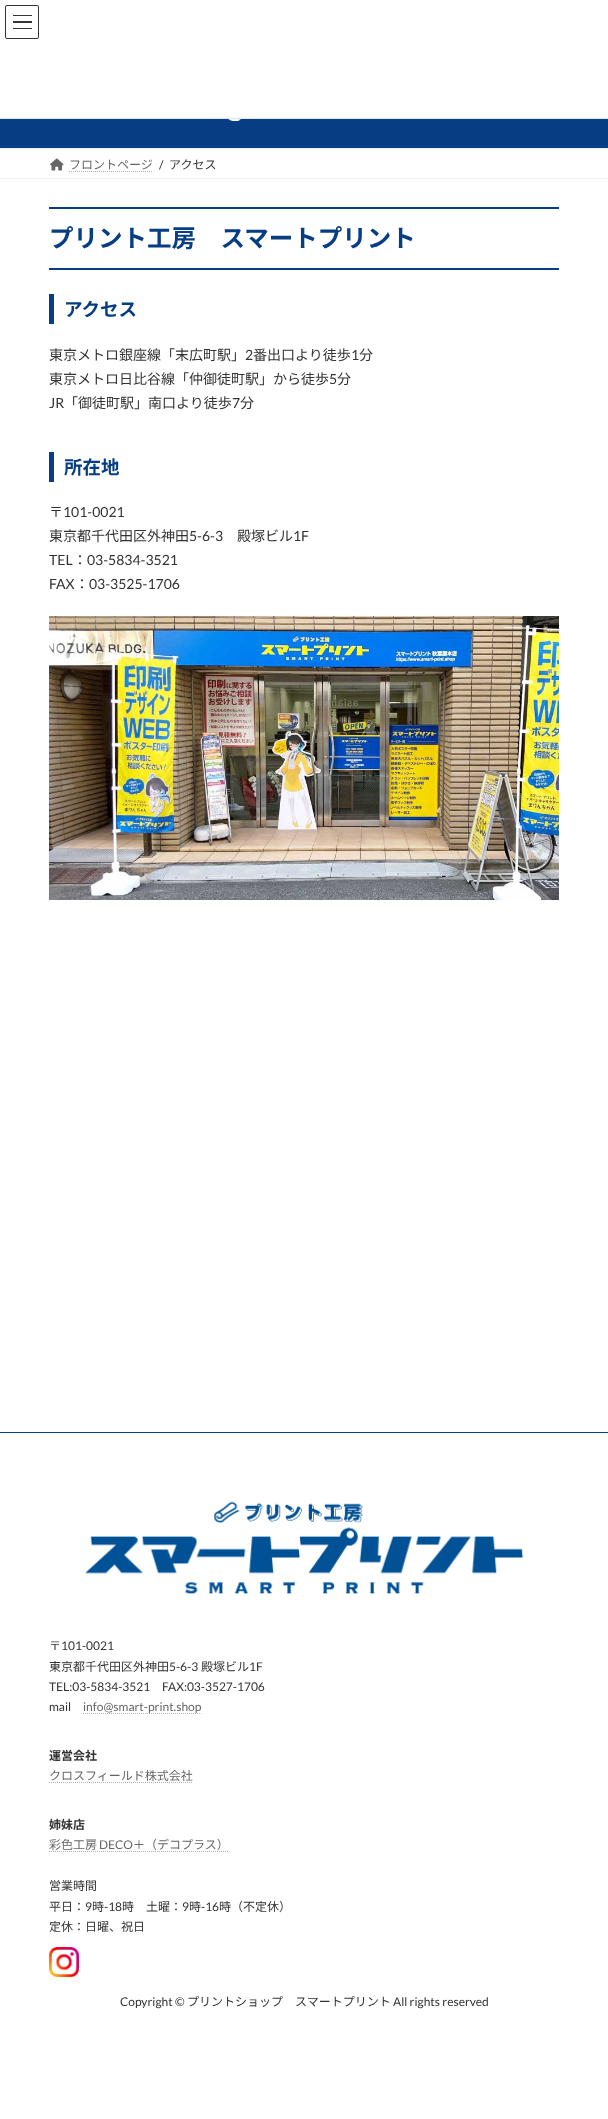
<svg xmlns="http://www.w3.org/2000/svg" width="608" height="2119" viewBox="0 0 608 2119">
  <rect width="100%" height="100%" fill="rgb(255,255,255)"/>
  <rect x="13" y="15" width="19" height="1" fill="rgb(51,51,51)"/>
  <rect x="13" y="21" width="19" height="2" fill="rgb(51,51,51)"/>
  <rect x="13" y="28" width="19" height="1" fill="rgb(51,51,51)"/>
  <rect x="5.5" y="5.5" width="33" height="33" rx="1.5" fill="none" stroke="rgb(51,51,51)"/>
  <rect x="0" y="118" width="608" height="1" fill="rgb(229,229,229)"/>
  <rect x="0" y="119" width="608" height="29" fill="rgb(6,61,131)"/>
  <image x="228" y="119" width="13" height="2" href="pic1.png"/>
  <rect x="0" y="148" width="608" height="1" fill="rgb(240,240,240)"/>
  <rect x="0" y="178" width="608" height="1" fill="rgb(240,240,240)"/>
  <image x="50" y="158" width="14" height="13" href="pic2.png"/>
  <text x="69" y="169" font-family="Noto Sans JP" font-size="12" fill="rgb(102,102,102)">フロントページ</text>
  <path d="M69 171.5H152.5" fill="none" stroke="rgb(179,179,179)" stroke-dasharray="1 1"/>
  <text x="159" y="169" font-family="Lato" font-size="12" fill="rgb(51,51,51)">/</text>
  <text x="169" y="169" font-family="Noto Sans JP" font-size="12" fill="rgb(51,51,51)">アクセス</text>
  <rect x="49" y="207" width="510" height="2" fill="rgb(6,61,131)"/>
  <rect x="49" y="268" width="510" height="2" fill="rgb(6,61,131)"/>
  <text x="49" y="247" font-family="Noto Sans JP" font-size="24.5" font-weight="bold" fill="rgb(6,61,131)">プリント工房　スマートプリント</text>
  <rect x="49" y="294" width="5" height="30" fill="rgb(6,61,131)"/>
  <text x="64" y="316" font-family="Noto Sans JP" font-size="18.5" font-weight="bold" fill="rgb(6,61,131)">アクセス</text>
  <text x="49" y="360" font-family="Noto Sans JP" font-size="14" fill="rgb(51,51,51)">東京メトロ銀座線「末広町駅」</text>
  <text x="245" y="360" font-family="Lato" font-size="14" fill="rgb(51,51,51)">2</text>
  <text x="253" y="360" font-family="Noto Sans JP" font-size="14" fill="rgb(51,51,51)">番出口より徒歩</text>
  <text x="351" y="360" font-family="Lato" font-size="14" fill="rgb(51,51,51)">1</text>
  <g font-family="Noto Sans JP" font-size="14" fill="rgb(51,51,51)">
    <text x="359" y="360">分</text>
    <text x="49" y="384">東京メトロ日比谷線「仲御徒町駅」から徒歩</text>
  </g>
  <text x="329" y="384" font-family="Lato" font-size="14" fill="rgb(51,51,51)">5</text>
  <text x="337" y="384" font-family="Noto Sans JP" font-size="14" fill="rgb(51,51,51)">分</text>
  <text x="49" y="408" font-family="Lato" font-size="14" fill="rgb(51,51,51)">JR</text>
  <text x="64" y="408" font-family="Noto Sans JP" font-size="14" fill="rgb(51,51,51)">「御徒町駅」南口より徒歩</text>
  <text x="232" y="408" font-family="Lato" font-size="14" fill="rgb(51,51,51)">7</text>
  <text x="240" y="408" font-family="Noto Sans JP" font-size="14" fill="rgb(51,51,51)">分</text>
  <rect x="49" y="452" width="5" height="30" fill="rgb(6,61,131)"/>
  <text x="64" y="474" font-family="Noto Sans JP" font-size="18.5" font-weight="bold" fill="rgb(6,61,131)">所在地</text>
  <text x="49" y="517" font-family="Noto Sans JP" font-size="14" fill="rgb(51,51,51)">〒</text>
  <text x="63" y="517" font-family="Lato" font-size="14" fill="rgb(51,51,51)">101-0021</text>
  <text x="49" y="541" font-family="Noto Sans JP" font-size="14" fill="rgb(51,51,51)">東京都千代田区外神田</text>
  <text x="189" y="541" font-family="Lato" font-size="14" fill="rgb(51,51,51)">5-6-3</text>
  <text x="237" y="541" font-family="Noto Sans JP" font-size="14" fill="rgb(51,51,51)">殿塚ビル</text>
  <g font-family="Lato" font-size="14" fill="rgb(51,51,51)">
    <text x="293" y="541">1F</text>
    <text x="49" y="565">TEL</text>
  </g>
  <text x="73" y="565" font-family="Noto Sans JP" font-size="14" fill="rgb(51,51,51)">：</text>
  <g font-family="Lato" font-size="14" fill="rgb(51,51,51)">
    <text x="87" y="565">03-5834-3521</text>
    <text x="49" y="589">FAX</text>
  </g>
  <text x="75" y="589" font-family="Noto Sans JP" font-size="14" fill="rgb(51,51,51)">：</text>
  <text x="89" y="589" font-family="Lato" font-size="14" fill="rgb(51,51,51)">03-3525-1706</text>
  <image x="49" y="616" width="510" height="284" href="pic3.png"/>
  <rect x="0" y="1432" width="608" height="1" fill="rgb(6,61,131)"/>
  <image x="85" y="1501" width="439" height="94" href="pic4.png"/>
  <text x="49" y="1650" font-family="Noto Sans JP" font-size="12" fill="rgb(51,51,51)">〒</text>
  <text x="61" y="1650" font-family="Lato" font-size="12" fill="rgb(51,51,51)">101-0021</text>
  <text x="49" y="1671" font-family="Noto Sans JP" font-size="12" fill="rgb(51,51,51)">東京都千代田区外神田</text>
  <text x="169" y="1671" font-family="Lato" font-size="12" fill="rgb(51,51,51)">5-6-3</text>
  <text x="201" y="1671" font-family="Noto Sans JP" font-size="12" fill="rgb(51,51,51)">殿塚ビル</text>
  <g font-family="Lato" font-size="12" fill="rgb(51,51,51)">
    <text x="249" y="1671">1F</text>
    <text x="49" y="1691">TEL:03-5834-3521</text>
    <text x="162" y="1691">FAX:03-3527-1706</text>
    <text x="49" y="1711">mail</text>
  </g>
  <path d="M83 1713.5H201.5" fill="none" stroke="rgb(179,179,179)" stroke-dasharray="1 1"/>
  <text x="83" y="1711" font-family="Lato" font-size="12" fill="rgb(102,102,102)">info@smart-print.shop</text>
  <text x="49" y="1760" font-family="Noto Sans JP" font-size="12" font-weight="bold" fill="rgb(51,51,51)">運営会社</text>
  <text x="49" y="1780" font-family="Noto Sans JP" font-size="12" fill="rgb(102,102,102)">クロスフィールド株式会社</text>
  <path d="M49 1782.5H193" fill="none" stroke="rgb(179,179,179)" stroke-dasharray="1 1"/>
  <text x="49" y="1829" font-family="Noto Sans JP" font-size="12" font-weight="bold" fill="rgb(51,51,51)">姉妹店</text>
  <text x="49" y="1849" font-family="Noto Sans JP" font-size="12" fill="rgb(102,102,102)">彩色工房</text>
  <text x="99" y="1849" font-family="Lato" font-size="12" fill="rgb(102,102,102)">DECO</text>
  <path d="M49 1851.5H229" fill="none" stroke="rgb(179,179,179)" stroke-dasharray="1 1"/>
  <text x="133" y="1849" font-family="Noto Sans JP" font-size="12" fill="rgb(102,102,102)">＋（デコプラス）</text>
  <g font-family="Noto Sans JP" font-size="12" fill="rgb(51,51,51)">
    <text>
      <tspan x="49" y="1890">営業時間</tspan>
      <tspan x="49" y="1911">平日：</tspan>
    </text>
  </g>
  <text x="85" y="1911" font-family="Lato" font-size="12" fill="rgb(51,51,51)">9</text>
  <text x="92" y="1911" font-family="Noto Sans JP" font-size="12" fill="rgb(51,51,51)">時</text>
  <text x="104" y="1911" font-family="Lato" font-size="12" fill="rgb(51,51,51)">-18</text>
  <text x="122" y="1911" font-family="Noto Sans JP" font-size="12" fill="rgb(51,51,51)">時　土曜：</text>
  <text x="182" y="1911" font-family="Lato" font-size="12" fill="rgb(51,51,51)">9</text>
  <text x="189" y="1911" font-family="Noto Sans JP" font-size="12" fill="rgb(51,51,51)">時</text>
  <text x="201" y="1911" font-family="Lato" font-size="12" fill="rgb(51,51,51)">-16</text>
  <g font-family="Noto Sans JP" font-size="12" fill="rgb(51,51,51)">
    <text x="219" y="1911">時（不定休）</text>
    <text x="49" y="1931">定休：日曜、祝日</text>
  </g>
  <image x="49" y="1947" width="30" height="30" href="pic5.png"/>
  <text x="120" y="2006" font-family="Lato" font-size="12" fill="rgb(51,51,51)">Copyright ©</text>
  <text x="187" y="2006" font-family="Noto Sans JP" font-size="12" fill="rgb(51,51,51)">プリントショップ　スマートプリント</text>
  <text x="393" y="2006" font-family="Lato" font-size="12" fill="rgb(51,51,51)">All rights reserved</text>
</svg>
